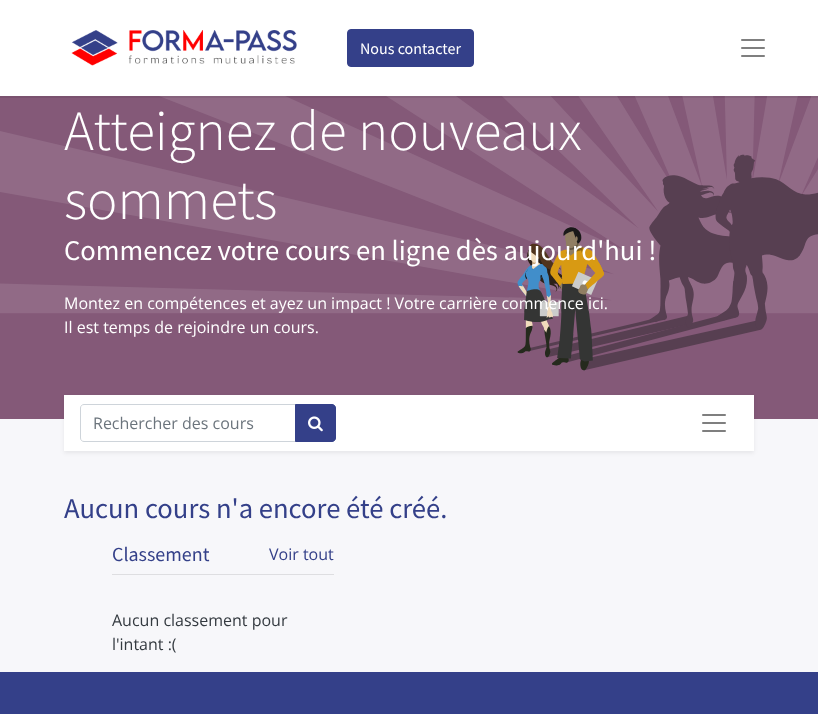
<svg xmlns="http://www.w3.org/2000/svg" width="818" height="714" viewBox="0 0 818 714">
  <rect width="100%" height="100%" fill="rgb(247,247,250)"/>
  <image x="0" y="96" width="818" height="323" href="pic3.png"/>
  <rect x="0" y="96" width="818" height="2" fill="rgba(0,0,0,0.07)"/>
  <rect x="0" y="0" width="818" height="96" fill="rgb(255,255,255)"/>
  <image x="71" y="30" width="226" height="36" href="pic1.png"/>
  <rect x="347.5" y="29.5" width="126" height="37" rx="3.5" fill="rgb(52,64,137)" stroke="rgb(52,64,137)"/>
  <text x="360" y="54" font-family="Source Sans Pro" font-size="16" fill="rgb(255,255,255)">Nous contacter</text>
  <image x="741" y="39" width="24" height="18" href="pic2.png"/>
  <g font-family="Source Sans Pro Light" font-size="57" font-weight="300" fill="rgb(255,255,255)">
    <text>
      <tspan x="64" y="150">Atteignez de nouveaux</tspan>
      <tspan x="64" y="219">sommets</tspan>
    </text>
  </g>
  <text x="64" y="260" font-family="Source Sans Pro" font-size="28.6" fill="rgb(255,255,255)">Commencez votre cours en ligne dès aujourd'hui !</text>
  <g font-family="Open Sans" font-size="16" fill="rgb(255,255,255)">
    <text>
      <tspan x="64" y="309">Montez en compétences et ayez un impact ! Votre carrière commence ici.</tspan>
      <tspan x="64" y="333">Il est temps de rejoindre un cours.</tspan>
    </text>
  </g>
  <rect x="64" y="397" width="690" height="56" fill="rgba(0,0,0,0.07)" filter="blur(2px)"/>
  <rect x="64" y="395" width="690" height="56" fill="rgb(255,255,255)"/>
  <path d="M84 404.5H295.5V441.5H84C82 441.5 80.5 440 80.5 438V408C80.5 406 82 404.5 84 404.5Z" fill="none" stroke="rgb(206,212,218)"/>
  <text x="93" y="429" font-family="Open Sans" font-size="16" fill="rgb(108,117,125)">Rechercher des cours</text>
  <path d="M295.5 404.5H332C334 404.5 335.5 406 335.5 408V438C335.5 440 334 441.5 332 441.5H295.5Z" fill="rgb(52,64,137)" stroke="rgb(52,64,137)"/>
  <image x="308" y="416" width="15" height="16" href="pic4.png"/>
  <image x="702" y="414" width="24" height="18" href="pic2.png"/>
  <text x="64" y="518" font-family="Source Sans Pro" font-size="28.6" fill="rgb(52,64,137)">Aucun cours n'a encore été créé.</text>
  <text x="112" y="561" font-family="Source Sans Pro" font-size="20" fill="rgb(52,64,137)">Classement</text>
  <text x="269" y="560" font-family="Open Sans" font-size="16" fill="rgb(52,64,137)">Voir tout</text>
  <rect x="112" y="574" width="222" height="1" fill="rgb(222,222,225)"/>
  <g font-family="Open Sans" font-size="16" fill="rgb(52,58,64)">
    <text>
      <tspan x="112" y="626">Aucun classement pour</tspan>
      <tspan x="112" y="650">l'intant :(</tspan>
    </text>
  </g>
  <rect x="0" y="672" width="818" height="42" fill="rgb(52,64,137)"/>
</svg>
